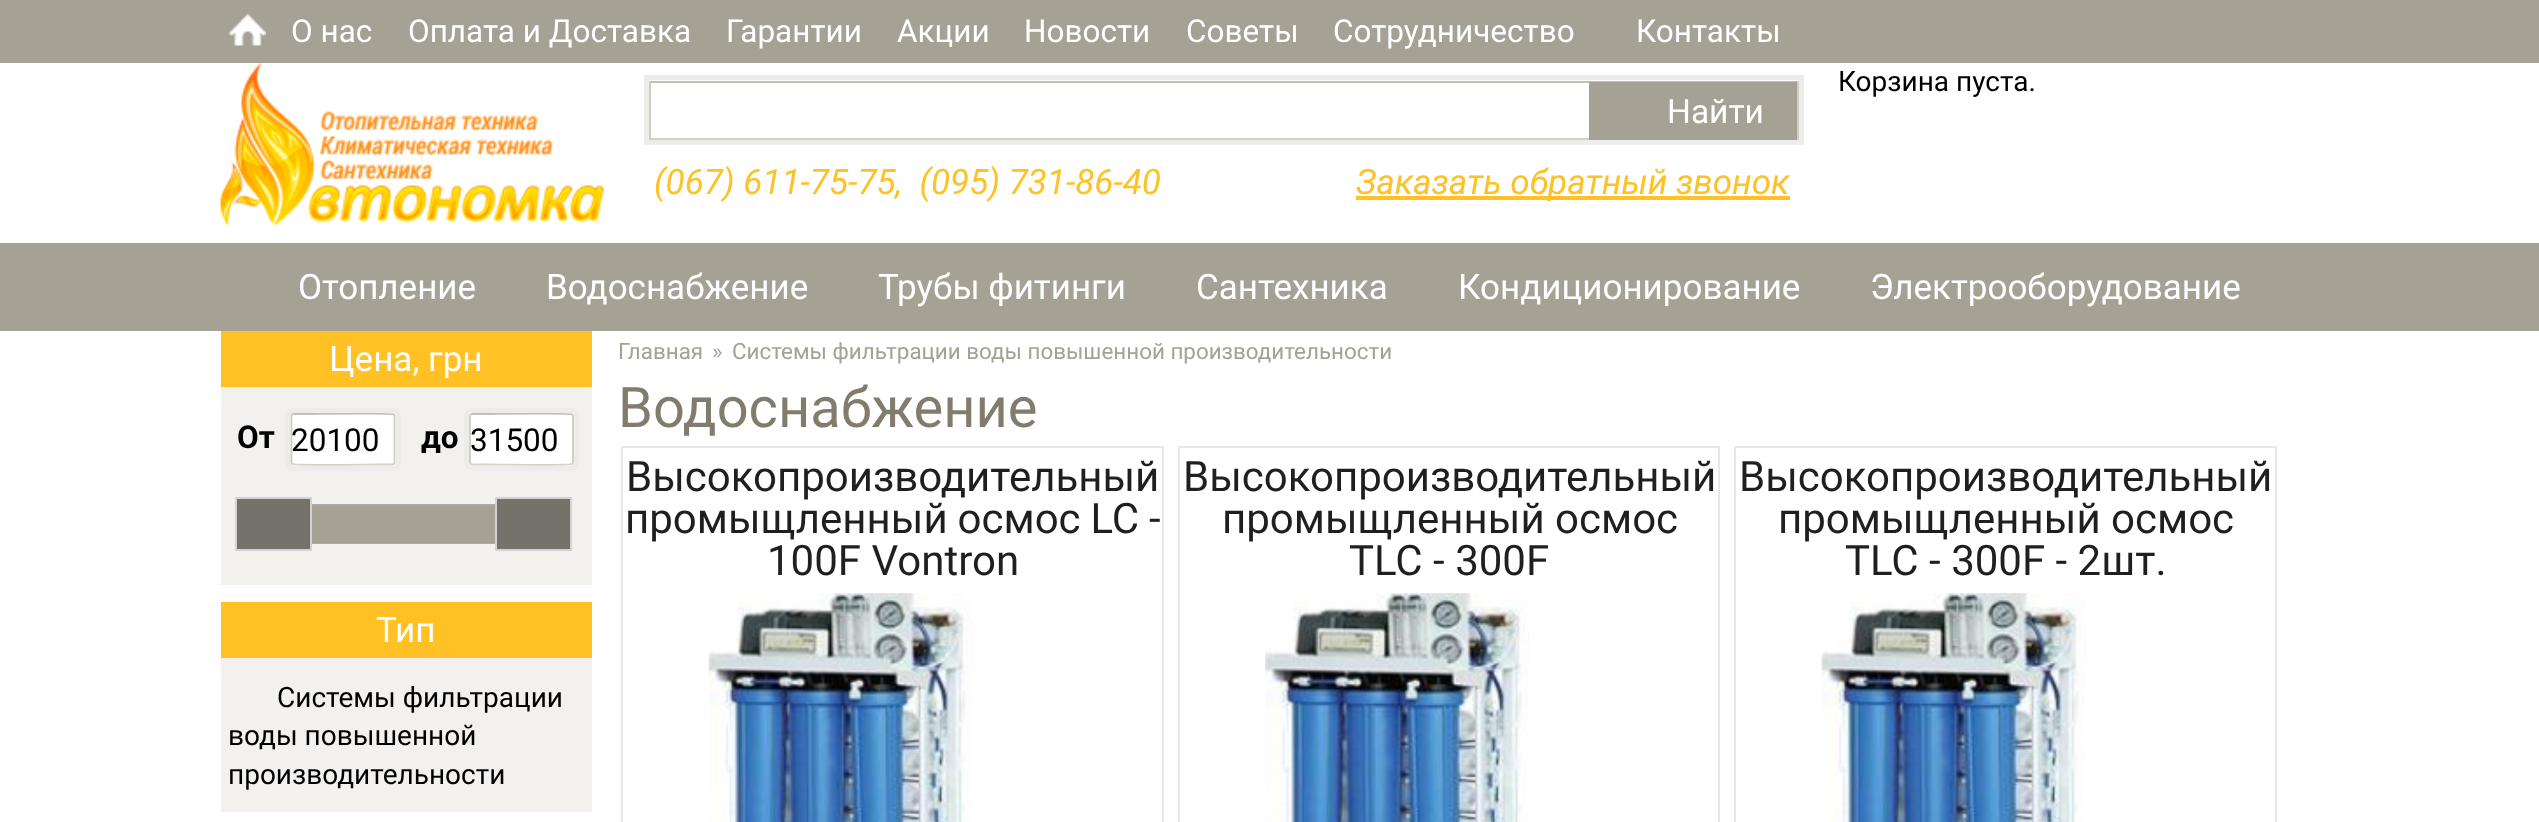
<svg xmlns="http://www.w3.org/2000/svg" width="2539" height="822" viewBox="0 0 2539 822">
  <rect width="100%" height="100%" fill="rgb(255,255,255)"/>
  <rect x="0" y="0" width="2539" height="63" fill="rgb(166,161,149)"/>
  <image x="229" y="14" width="37" height="32" href="pic1.png"/>
  <g font-family="Roboto" font-size="31.5" fill="rgb(255,255,255)">
    <text x="291" y="42">О нас</text>
    <text x="408" y="42">Оплата и Доставка</text>
    <text x="726" y="42">Гарантии</text>
    <text x="897" y="42">Акции</text>
    <text x="1024" y="42">Новости</text>
    <text x="1186" y="42">Советы</text>
    <text x="1333" y="42">Сотрудничество</text>
    <text x="1636" y="42">Контакты</text>
  </g>
  <image x="220" y="63" width="384" height="163" href="pic2.png"/>
  <text x="1838" y="91" font-family="Roboto" font-size="28" fill="rgb(0,0,0)">Корзина пуста.</text>
  <rect x="649" y="81" width="1150" height="2" fill="rgb(193,192,182)"/>
  <rect x="1797" y="81" width="2" height="59" fill="rgb(206,205,194)"/>
  <rect x="649" y="138" width="1150" height="2" fill="rgb(211,210,198)"/>
  <rect x="649" y="81" width="2" height="59" fill="rgb(206,205,194)"/>
  <rect x="646.5" y="77.5" width="1155" height="65" fill="none" stroke="rgb(237,236,234)" stroke-width="5"/>
  <rect x="1589" y="82" width="208" height="58" fill="rgb(166,161,149)"/>
  <text x="1667" y="123" font-family="Roboto" font-size="33.5" fill="rgb(255,255,255)">Найти</text>
  <text x="654" y="194" font-family="Roboto" font-size="35" font-style="italic" fill="rgb(255,193,36)" xml:space="preserve">(067) 611-75-75,  (095) 731-86-40</text>
  <rect x="1356" y="196" width="434" height="4" fill="rgb(255,193,36)"/>
  <text x="1356" y="194" font-family="Roboto" font-size="35" font-style="italic" fill="rgb(255,193,36)">Заказать обратный звонок</text>
  <rect x="0" y="243" width="2539" height="88" fill="rgb(166,161,149)"/>
  <g font-family="Roboto" font-size="35" fill="rgb(255,255,255)">
    <text x="298" y="299">Отопление</text>
    <text x="546" y="299">Водоснабжение</text>
    <text x="878" y="299">Трубы фитинги</text>
    <text x="1196" y="299">Сантехника</text>
    <text x="1458" y="299">Кондиционирование</text>
    <text x="1870" y="299">Электрооборудование</text>
  </g>
  <rect x="221" y="331" width="371" height="56" fill="rgb(255,193,36)"/>
  <text x="329" y="371" font-family="Roboto" font-size="35" fill="rgb(255,255,255)">Цена, грн</text>
  <rect x="221" y="387" width="371" height="198" fill="rgb(242,241,237)"/>
  <text x="237" y="448" font-family="Roboto" font-size="31.5" font-weight="bold" fill="rgb(0,0,0)">От</text>
  <rect x="291" y="413" width="105" height="53" rx="4" fill="rgb(255,255,255)"/>
  <path d="M292 414.5L294 414H310.5C319 414 391.5 413 393.5 414.5H394" fill="none" stroke="rgb(193,192,182)" stroke-width="1.8"/>
  <path d="M394 414.5L394.5 416V462.5L394 464" fill="none" stroke="rgb(206,205,194)" stroke-width="1.8"/>
  <path d="M394 464L392 464.5H375.5C367 464.5 294.5 465.5 292.5 464H292" fill="none" stroke="rgb(211,210,198)" stroke-width="1.8"/>
  <path d="M292 464L291.5 462.5V416L292 414.5" fill="none" stroke="rgb(206,205,194)" stroke-width="1.8"/>
  <rect x="287.5" y="410.5" width="111" height="58" rx="6.5" fill="none" stroke="rgb(237,236,234)" stroke-width="5"/>
  <text x="291" y="451" font-family="Roboto" font-size="31.5" fill="rgb(0,0,0)">20100</text>
  <text x="421" y="448" font-family="Roboto" font-size="31.5" font-weight="bold" fill="rgb(0,0,0)">до</text>
  <rect x="469" y="413" width="105" height="53" rx="4" fill="rgb(255,255,255)"/>
  <path d="M470.5 414.5L472.5 414H489C497.5 414 570 413 572 414.5H572.5" fill="none" stroke="rgb(193,192,182)" stroke-width="1.8"/>
  <path d="M572.5 414.5L573 416V462.5L572.5 464" fill="none" stroke="rgb(206,205,194)" stroke-width="1.8"/>
  <path d="M572.5 464H572C570 465.5 497.5 464.5 489 464.5H472.5L470.5 464" fill="none" stroke="rgb(211,210,198)" stroke-width="1.8"/>
  <path d="M470.5 464L470 462.5V416L470.5 414.5" fill="none" stroke="rgb(206,205,194)" stroke-width="1.8"/>
  <rect x="466.5" y="410.5" width="110" height="58" rx="6.5" fill="none" stroke="rgb(237,236,234)" stroke-width="5"/>
  <text x="470" y="451" font-family="Roboto" font-size="31.5" fill="rgb(0,0,0)">31500</text>
  <rect x="272" y="505" width="261" height="38" fill="none" stroke="rgb(170,170,170)" stroke-width="2"/>
  <rect x="236" y="498" width="75" height="52" fill="rgb(117,114,106)" stroke="rgb(211,211,211)" stroke-width="2"/>
  <rect x="312" y="506" width="183" height="37" fill="rgb(166,161,149)"/>
  <rect x="496" y="498" width="75" height="52" fill="rgb(117,114,106)" stroke="rgb(211,211,211)" stroke-width="2"/>
  <rect x="221" y="602" width="371" height="56" fill="rgb(255,193,36)"/>
  <text x="376" y="642" font-family="Roboto" font-size="35" fill="rgb(255,255,255)">Тип</text>
  <rect x="221" y="658" width="371" height="154" fill="rgb(242,241,237)"/>
  <g font-family="Roboto" font-size="28" fill="rgb(0,0,0)">
    <text x="277" y="707">Системы фильтрации</text>
    <text>
      <tspan x="228" y="745">воды повышенной</tspan>
      <tspan x="228" y="784">производительности</tspan>
    </text>
  </g>
  <g font-family="Roboto" font-size="22.4" fill="rgb(166,161,149)">
    <text x="618" y="359">Главная</text>
    <text x="712" y="359">»</text>
    <text x="732" y="359">Системы фильтрации воды повышенной производительности</text>
  </g>
  <text x="618" y="427" font-family="Roboto" font-size="56" fill="rgb(130,124,109)">Водоснабжение</text>
  <rect x="622" y="447" width="541" height="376" fill="none" stroke="rgb(230,233,234)" stroke-width="2"/>
  <g font-family="Roboto" font-size="42" fill="rgb(31,31,31)">
    <text x="626" y="491">Высокопроизводительный</text>
    <text x="625" y="533" word-spacing="-0.5">промыщленный осмос LC -</text>
    <text x="767" y="575">100F Vontron</text>
  </g>
  <image x="708" y="593" width="265" height="229" href="pic3.png"/>
  <rect x="1179" y="447" width="540" height="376" fill="none" stroke="rgb(230,233,234)" stroke-width="2"/>
  <g font-family="Roboto" font-size="42" fill="rgb(31,31,31)">
    <text x="1183" y="491">Высокопроизводительный</text>
    <text x="1222" y="533">промыщленный осмос</text>
    <text x="1349" y="575">TLC - 300F</text>
  </g>
  <image x="1265" y="593" width="264" height="229" href="pic4.png"/>
  <rect x="1735" y="447" width="541" height="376" fill="none" stroke="rgb(230,233,234)" stroke-width="2"/>
  <g font-family="Roboto" font-size="42" fill="rgb(31,31,31)">
    <text x="1739" y="491">Высокопроизводительный</text>
    <text x="1778" y="533">промыщленный осмос</text>
    <text x="1845" y="575">TLC - 300F - 2шт.</text>
  </g>
  <image x="1821" y="593" width="265" height="229" href="pic5.png"/>
</svg>
